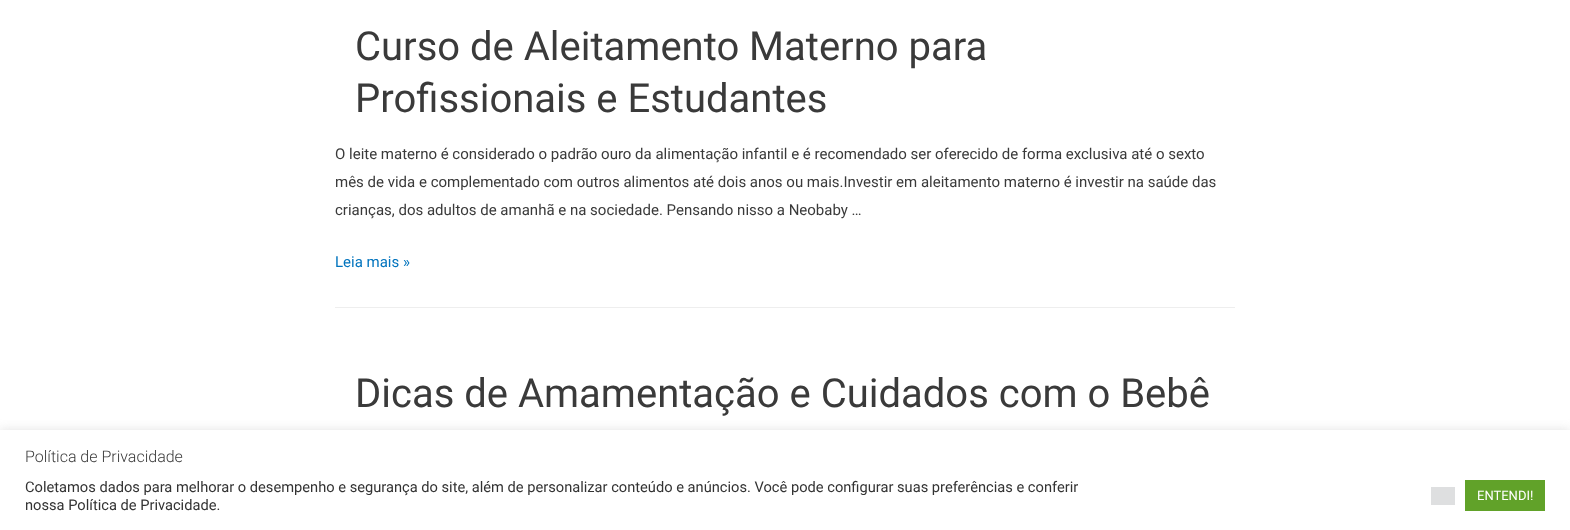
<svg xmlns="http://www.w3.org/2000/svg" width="1570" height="530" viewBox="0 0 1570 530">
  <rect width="100%" height="100%" fill="rgb(255,255,255)"/>
  <rect x="335" y="307" width="900" height="1" fill="rgb(238,238,238)"/>
  <g font-family="Roboto" font-size="40" fill="rgb(58,58,58)">
    <text>
      <tspan x="355" y="60">Curso de Aleitamento Materno para</tspan>
      <tspan x="355" y="112">Profissionais e Estudantes</tspan>
    </text>
  </g>
  <g font-family="Roboto" font-size="15" fill="rgb(58,58,58)">
    <text>
      <tspan x="335" y="159">O leite materno é considerado o padrão ouro da alimentação infantil e é recomendado ser oferecido de forma exclusiva até o sexto</tspan>
      <tspan x="335" y="187">mês de vida e complementado com outros alimentos até dois anos ou mais.Investir em aleitamento materno é investir na saúde das</tspan>
      <tspan x="335" y="215">crianças, dos adultos de amanhã e na sociedade. Pensando nisso a Neobaby …</tspan>
    </text>
  </g>
  <text x="335" y="267" font-family="Roboto" font-size="15" fill="rgb(2,116,190)">Leia mais »</text>
  <text x="355" y="407" font-family="Roboto" font-size="40" fill="rgb(58,58,58)">Dicas de Amamentação e Cuidados com o Bebê</text>
  <rect x="0" y="429" width="1570" height="100" fill="rgba(172,171,171,0.3)" filter="blur(5px)"/>
  <rect x="0" y="430" width="1570" height="100" fill="rgb(255,255,255)"/>
  <text x="25" y="462" font-family="Roboto" font-size="16" font-weight="300" fill="rgb(58,58,58)">Política de Privacidade</text>
  <g font-family="Roboto" font-size="14.67" fill="rgb(51,51,51)">
    <text>
      <tspan x="25" y="492">Coletamos dados para melhorar o desempenho e segurança do site, além de personalizar conteúdo e anúncios. Você pode configurar suas preferências e conferir</tspan>
      <tspan x="25" y="510">nossa Política de Privacidade.</tspan>
    </text>
  </g>
  <rect x="1431" y="487" width="24" height="18" fill="rgb(222,223,224)"/>
  <rect x="1465" y="480" width="80" height="31" fill="rgb(97,162,41)"/>
  <text x="1477" y="500" font-family="Roboto" font-size="13" fill="rgb(255,255,255)">ENTENDI!</text>
</svg>
